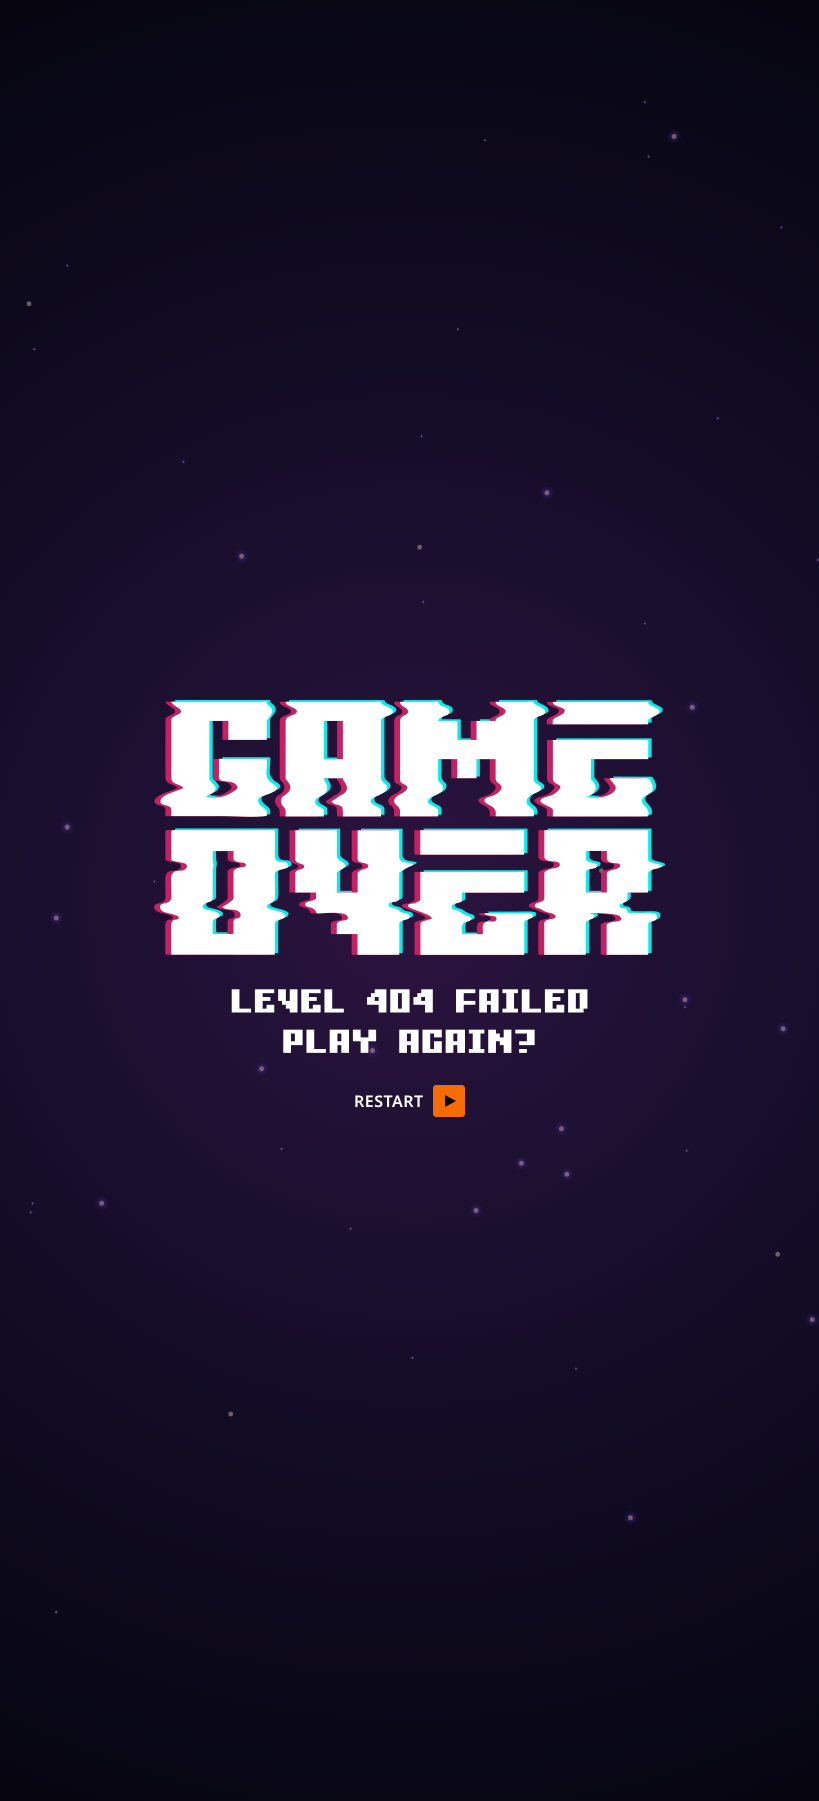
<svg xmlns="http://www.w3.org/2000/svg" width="819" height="1801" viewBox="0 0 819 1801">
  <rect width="100%" height="100%" fill="rgb(255,255,255)"/>
  <image x="0" y="0" width="819" height="1801" href="pic1.png"/>
  <image x="154" y="700" width="511" height="353" href="pic2.png"/>
  <text x="354" y="1107" font-family="Noto Sans" font-size="16" font-weight="600" letter-spacing="0.5" fill="rgb(255,255,255)">RESTART</text>
  <rect x="433.5" y="1085.5" width="31" height="31" rx="2.5" fill="rgb(245,108,0)" stroke="rgb(245,108,0)"/>
  <path d="M445 1107V1095L456 1101Z" fill="rgb(0,0,0)"/>
</svg>
